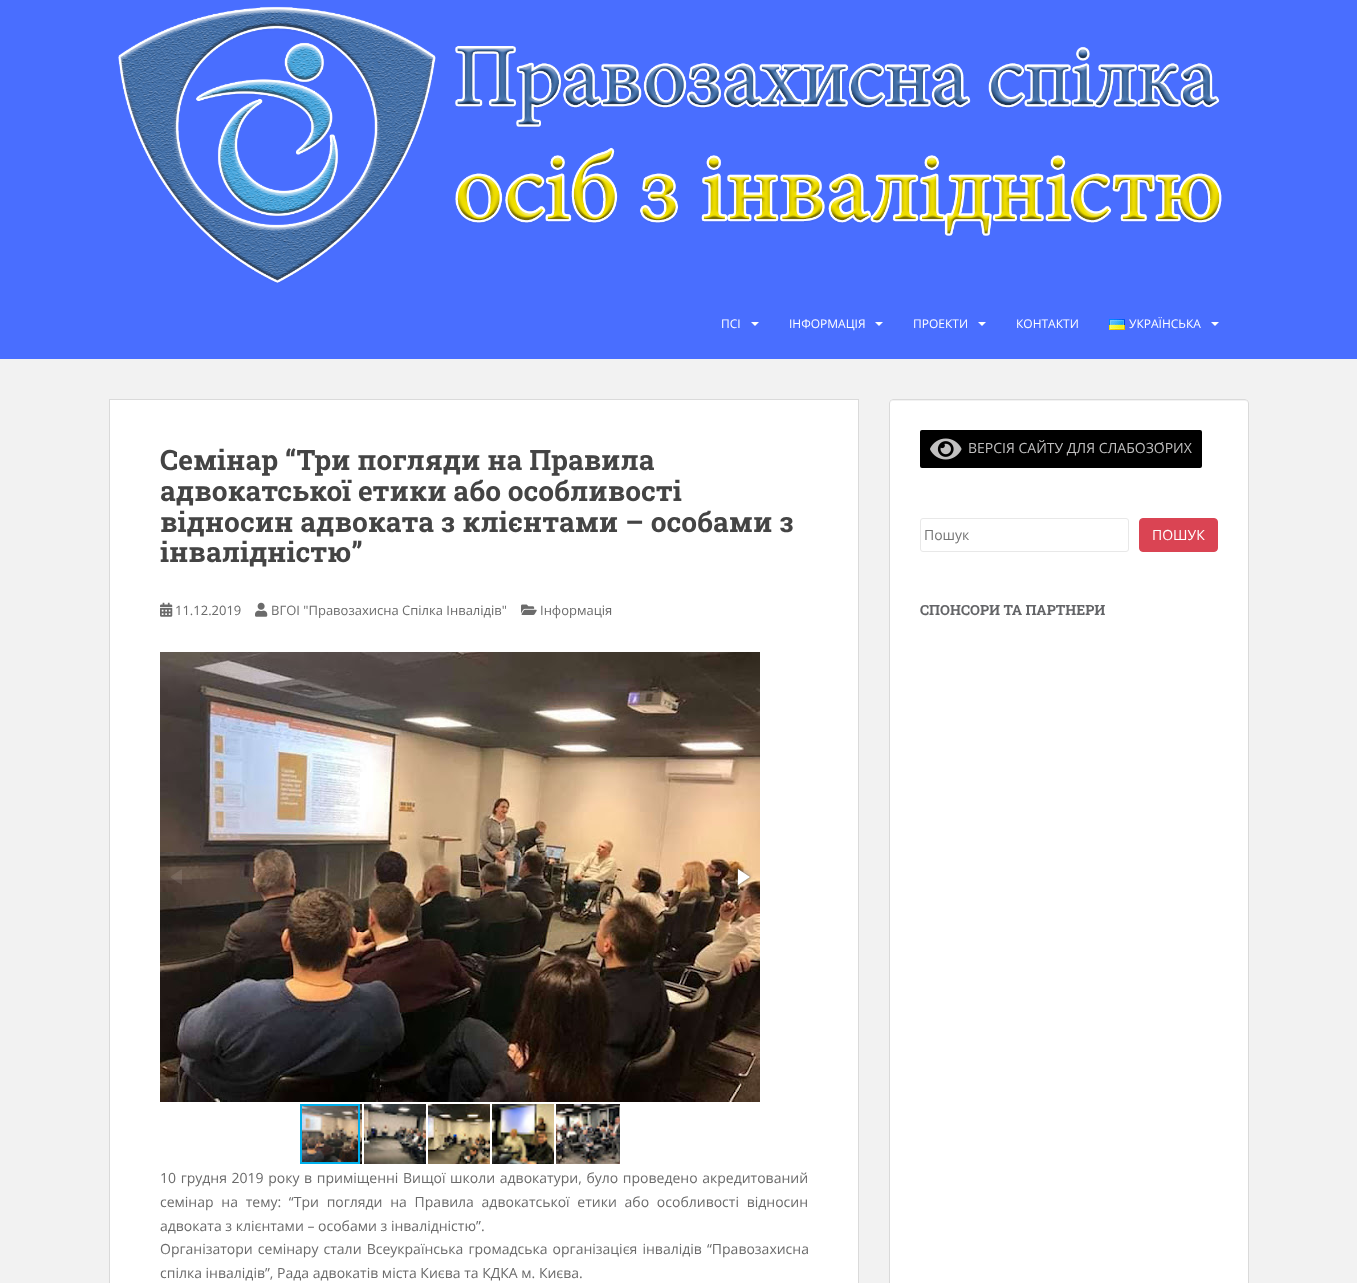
<svg xmlns="http://www.w3.org/2000/svg" width="1357" height="1283" viewBox="0 0 1357 1283">
  <rect width="100%" height="100%" fill="rgb(242,242,242)"/>
  <rect x="0" y="0" width="1357" height="359" fill="rgb(73,110,255)"/>
  <image x="118" y="6" width="1104" height="278" href="pic1.png"/>
  <text x="721" y="328" font-family="Open Sans" font-size="12" fill="rgb(255,255,255)">ПСІ</text>
  <path d="M751 322H759L755 326Z" fill="rgb(255,255,255)"/>
  <text x="789" y="328" font-family="Open Sans" font-size="12" fill="rgb(255,255,255)">ІНФОРМАЦІЯ</text>
  <path d="M875 322H883L879 326Z" fill="rgb(255,255,255)"/>
  <text x="913" y="328" font-family="Open Sans" font-size="12" fill="rgb(255,255,255)">ПРОЕКТИ</text>
  <path d="M978 322H986L982 326Z" fill="rgb(255,255,255)"/>
  <text x="1016" y="328" font-family="Open Sans" font-size="12" fill="rgb(255,255,255)">КОНТАКТИ</text>
  <image x="1109" y="319" width="16" height="11" href="pic2.png"/>
  <text x="1129" y="328" font-family="Open Sans" font-size="12" fill="rgb(255,255,255)">УКРАЇНСЬКА</text>
  <path d="M1211 322H1219L1215 326Z" fill="rgb(255,255,255)"/>
  <rect x="109.5" y="399.5" width="749" height="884" fill="rgb(255,255,255)" stroke="rgb(218,218,218)"/>
  <g font-family="Roboto Slab" font-size="28" font-weight="bold" fill="rgb(68,68,68)">
    <text>
      <tspan x="160" y="470">Семінар “Три погляди на Правила</tspan>
      <tspan x="160" y="501">адвокатської етики або особливості</tspan>
      <tspan x="160" y="532">відносин адвоката з клієнтами – особами з</tspan>
      <tspan x="160" y="562">інвалідністю”</tspan>
    </text>
  </g>
  <image x="160" y="602" width="13" height="15" href="pic3.png"/>
  <text x="175" y="615" font-family="Open Sans" font-size="13" fill="rgb(107,107,107)">11.12.2019</text>
  <image x="255" y="602" width="13" height="15" href="pic4.png"/>
  <text x="271" y="615" font-family="Open Sans" font-size="13" fill="rgb(107,107,107)">ВГОІ "Правозахисна Спілка Інвалідів"</text>
  <image x="521" y="604" width="16" height="11" href="pic5.png"/>
  <text x="540" y="615" font-family="Open Sans" font-size="13" fill="rgb(107,107,107)">Інформація</text>
  <image x="160" y="652" width="600" height="450" href="pic6.png"/>
  <image x="170" y="869" width="12" height="16" href="pic7.png"/>
  <image x="734" y="866" width="19" height="22" href="pic8.png"/>
  <image x="302" y="1104" width="60" height="60" href="pic9.png"/>
  <rect x="301" y="1105" width="58" height="58" fill="none" stroke="rgb(0,175,234)" stroke-width="2"/>
  <image x="364" y="1104" width="62" height="60" href="pic10.png"/>
  <image x="428" y="1104" width="62" height="60" href="pic11.png"/>
  <image x="492" y="1104" width="62" height="60" href="pic12.png"/>
  <image x="556" y="1104" width="64" height="60" href="pic13.png"/>
  <g font-family="Open Sans" font-size="14" fill="rgb(107,107,107)">
    <text>
      <tspan x="160" y="1183" word-spacing="1">10 грудня 2019 року в приміщенні Вищої школи адвокатури, було проведено акредитований</tspan>
      <tspan x="160" y="1207" word-spacing="4.1">семінар на тему: “Три погляди на Правила адвокатської етики або особливості відносин</tspan>
      <tspan x="160" y="1231">адвоката з клієнтами – особами з інвалідністю”.</tspan>
      <tspan x="160" y="1254" word-spacing="1.5">Організатори семінару стали Всеукраїнська громадська організацієя інвалідів “Правозахисна</tspan>
      <tspan x="160" y="1278">спілка інвалідів”, Рада адвокатів міста Києва та КДКА м. Києва.</tspan>
    </text>
  </g>
  <rect x="889" y="399" width="360" height="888" rx="4" fill="rgb(255,255,255)"/>
  <path d="M893 401H1245C1247 401 1248 402 1248 404C1248 402 1247 400 1245 400H893L891 401L890 404C890 402 891 401 893 401Z" fill="rgb(242,242,242)"/>
  <rect x="889.5" y="399.5" width="359" height="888" rx="3.5" fill="none" stroke="rgb(218,218,218)"/>
  <rect x="920" y="430" width="282" height="38" rx="2" fill="rgb(0,0,0)"/>
  <image x="930" y="438" width="32" height="22" href="pic14.png"/>
  <text x="968" y="453" font-family="Open Sans" font-size="14" fill="rgb(193,192,192)">ВЕРСІЯ САЙТУ ДЛЯ СЛАБОЗО́РИХ</text>
  <rect x="920.5" y="518.5" width="208" height="33" rx="2.5" fill="none" stroke="rgb(232,232,232)"/>
  <text x="924" y="540" font-family="Open Sans" font-size="14" fill="rgb(117,117,117)">Пошук</text>
  <rect x="1139.5" y="518.5" width="78" height="33" rx="3.5" fill="rgb(218,68,83)" stroke="rgb(218,68,83)"/>
  <text x="1152" y="540" font-family="Open Sans" font-size="14" fill="rgb(255,255,255)">ПОШУК</text>
  <text x="920" y="615" font-family="Roboto Slab" font-size="14" font-weight="bold" fill="rgb(99,100,103)">СПОНСОРИ ТА ПАРТНЕРИ</text>
</svg>
